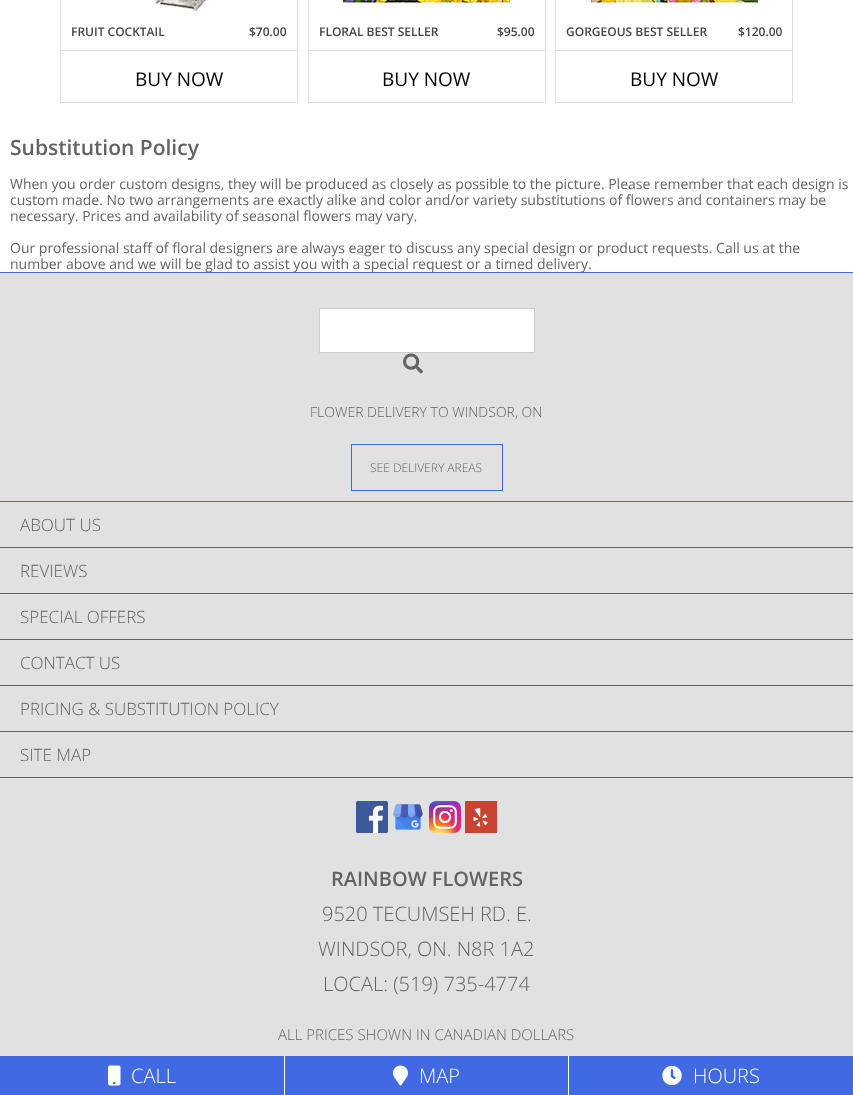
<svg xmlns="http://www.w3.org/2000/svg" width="853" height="1095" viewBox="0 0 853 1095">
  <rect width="100%" height="100%" fill="rgb(255,255,255)"/>
  <rect x="297" y="0" width="1" height="103" fill="rgb(226,222,221)"/>
  <rect x="60" y="102" width="238" height="1" fill="rgb(226,222,221)"/>
  <rect x="60" y="0" width="1" height="103" fill="rgb(226,222,221)"/>
  <image x="151" y="0" width="55" height="12" href="pic1.png"/>
  <g font-family="Open Sans" font-size="12" font-weight="600" fill="rgb(68,68,68)">
    <text x="71" y="36">FRUIT COCKTAIL</text>
    <text x="249" y="36">$70.00</text>
  </g>
  <rect x="61" y="50" width="236" height="1" fill="rgb(226,222,221)"/>
  <text x="135" y="86" font-family="Open Sans" font-size="19" fill="rgb(0,0,0)">BUY NOW</text>
  <rect x="545" y="0" width="1" height="103" fill="rgb(226,222,221)"/>
  <rect x="308" y="102" width="238" height="1" fill="rgb(226,222,221)"/>
  <rect x="308" y="0" width="1" height="103" fill="rgb(226,222,221)"/>
  <image x="343" y="0" width="167" height="8" href="pic2.png"/>
  <g font-family="Open Sans" font-size="12" font-weight="600" fill="rgb(68,68,68)">
    <text x="319" y="36">FLORAL BEST SELLER</text>
    <text x="497" y="36">$95.00</text>
  </g>
  <rect x="309" y="50" width="236" height="1" fill="rgb(226,222,221)"/>
  <text x="382" y="86" font-family="Open Sans" font-size="19" fill="rgb(0,0,0)">BUY NOW</text>
  <rect x="792" y="0" width="1" height="103" fill="rgb(226,222,221)"/>
  <rect x="555" y="102" width="238" height="1" fill="rgb(226,222,221)"/>
  <rect x="555" y="0" width="1" height="103" fill="rgb(226,222,221)"/>
  <image x="591" y="0" width="167" height="8" href="pic3.png"/>
  <g font-family="Open Sans" font-size="12" font-weight="600" fill="rgb(68,68,68)">
    <text x="566" y="36">GORGEOUS BEST SELLER</text>
    <text x="738" y="36">$120.00</text>
  </g>
  <rect x="556" y="50" width="236" height="1" fill="rgb(226,222,221)"/>
  <text x="630" y="86" font-family="Open Sans" font-size="19" fill="rgb(0,0,0)">BUY NOW</text>
  <text x="10" y="155" font-family="Open Sans" font-size="21" font-weight="600" fill="rgb(99,99,99)">Substitution Policy</text>
  <g font-family="Open Sans" font-size="14" fill="rgb(99,99,99)">
    <text>
      <tspan x="10" y="189">When you order custom designs, they will be produced as closely as possible to the picture. Please remember that each design is</tspan>
      <tspan x="10" y="205">custom made. No two arrangements are exactly alike and color and/or variety substitutions of flowers and containers may be</tspan>
      <tspan x="10" y="221">necessary. Prices and availability of seasonal flowers may vary.</tspan>
    </text>
    <text x="10" y="253">Our professional staff of floral designers are always eager to discuss any special design or product requests. Call us at the</text>
  </g>
  <rect x="0" y="272" width="853" height="1" fill="rgb(65,105,225)"/>
  <text x="10" y="269" font-family="Open Sans" font-size="14" fill="rgb(99,99,99)">number above and we will be glad to assist you with a special request or a timed delivery.</text>
  <rect x="0" y="273" width="853" height="228" fill="rgb(225,225,225)"/>
  <rect x="0" y="501" width="853" height="1" fill="rgb(65,105,225)"/>
  <rect x="319.5" y="308.5" width="215" height="44" fill="rgb(255,255,255)" stroke="rgb(204,204,204)"/>
  <image x="403" y="353" width="20" height="21" href="pic4.png"/>
  <text x="310" y="417" font-family="Open Sans" font-size="14" font-weight="300" fill="rgb(99,99,99)">FLOWER DELIVERY TO WINDSOR, ON</text>
  <rect x="351.5" y="444.5" width="151" height="46" fill="none" stroke="rgb(65,105,225)"/>
  <text x="370" y="472" font-family="Open Sans" font-size="12" font-weight="300" fill="rgb(99,99,99)">SEE DELIVERY AREAS</text>
  <rect x="0" y="502" width="853" height="554" fill="rgb(225,225,225)"/>
  <rect x="0" y="547" width="853" height="1" fill="rgb(99,99,99)"/>
  <text x="20" y="531" font-family="Open Sans" font-size="17" font-weight="300" fill="rgb(99,99,99)">ABOUT US</text>
  <rect x="0" y="593" width="853" height="1" fill="rgb(99,99,99)"/>
  <text x="20" y="577" font-family="Open Sans" font-size="17" font-weight="300" fill="rgb(99,99,99)">REVIEWS</text>
  <rect x="0" y="639" width="853" height="1" fill="rgb(99,99,99)"/>
  <text x="20" y="623" font-family="Open Sans" font-size="17" font-weight="300" fill="rgb(99,99,99)">SPECIAL OFFERS</text>
  <rect x="0" y="685" width="853" height="1" fill="rgb(99,99,99)"/>
  <text x="20" y="669" font-family="Open Sans" font-size="17" font-weight="300" fill="rgb(99,99,99)">CONTACT US</text>
  <rect x="0" y="731" width="853" height="1" fill="rgb(99,99,99)"/>
  <text x="20" y="715" font-family="Open Sans" font-size="17" font-weight="300" fill="rgb(99,99,99)">PRICING &amp; SUBSTITUTION POLICY</text>
  <rect x="0" y="777" width="853" height="1" fill="rgb(99,99,99)"/>
  <text x="20" y="761" font-family="Open Sans" font-size="17" font-weight="300" fill="rgb(99,99,99)">SITE MAP</text>
  <image x="356" y="801" width="32" height="32" href="pic5.png"/>
  <image x="393" y="804" width="30" height="26" href="pic6.png"/>
  <image x="429" y="801" width="32" height="32" href="pic7.png"/>
  <image x="465" y="801" width="32" height="32" href="pic8.png"/>
  <text x="331" y="886" font-family="Open Sans" font-size="20" font-weight="600" fill="rgb(99,99,99)">RAINBOW FLOWERS</text>
  <g font-family="Open Sans" font-size="20" font-weight="300" fill="rgb(99,99,99)">
    <text x="322" y="921">9520 TECUMSEH RD. E.</text>
    <text x="318" y="956">WINDSOR, ON. N8R 1A2</text>
    <text x="323" y="991">LOCAL: (519) 735-4774</text>
  </g>
  <text x="278" y="1040" font-family="Open Sans" font-size="15" font-weight="300" fill="rgb(99,99,99)">ALL PRICES SHOWN IN CANADIAN DOLLARS</text>
  <rect x="0" y="1056" width="284" height="39" fill="rgb(65,105,225)"/>
  <image x="108" y="1065" width="13" height="21" href="pic9.png"/>
  <text x="131" y="1083" font-family="Open Sans" font-size="20" font-weight="300" fill="rgb(255,255,255)">CALL</text>
  <rect x="285" y="1056" width="283" height="39" fill="rgb(65,105,225)"/>
  <image x="393" y="1065" width="15" height="21" href="pic10.png"/>
  <text x="419" y="1083" font-family="Open Sans" font-size="20" font-weight="300" fill="rgb(255,255,255)">MAP</text>
  <rect x="569" y="1056" width="284" height="39" fill="rgb(65,105,225)"/>
  <image x="662" y="1065" width="20" height="21" href="pic11.png"/>
  <text x="693" y="1083" font-family="Open Sans" font-size="20" font-weight="300" fill="rgb(255,255,255)">HOURS</text>
</svg>
